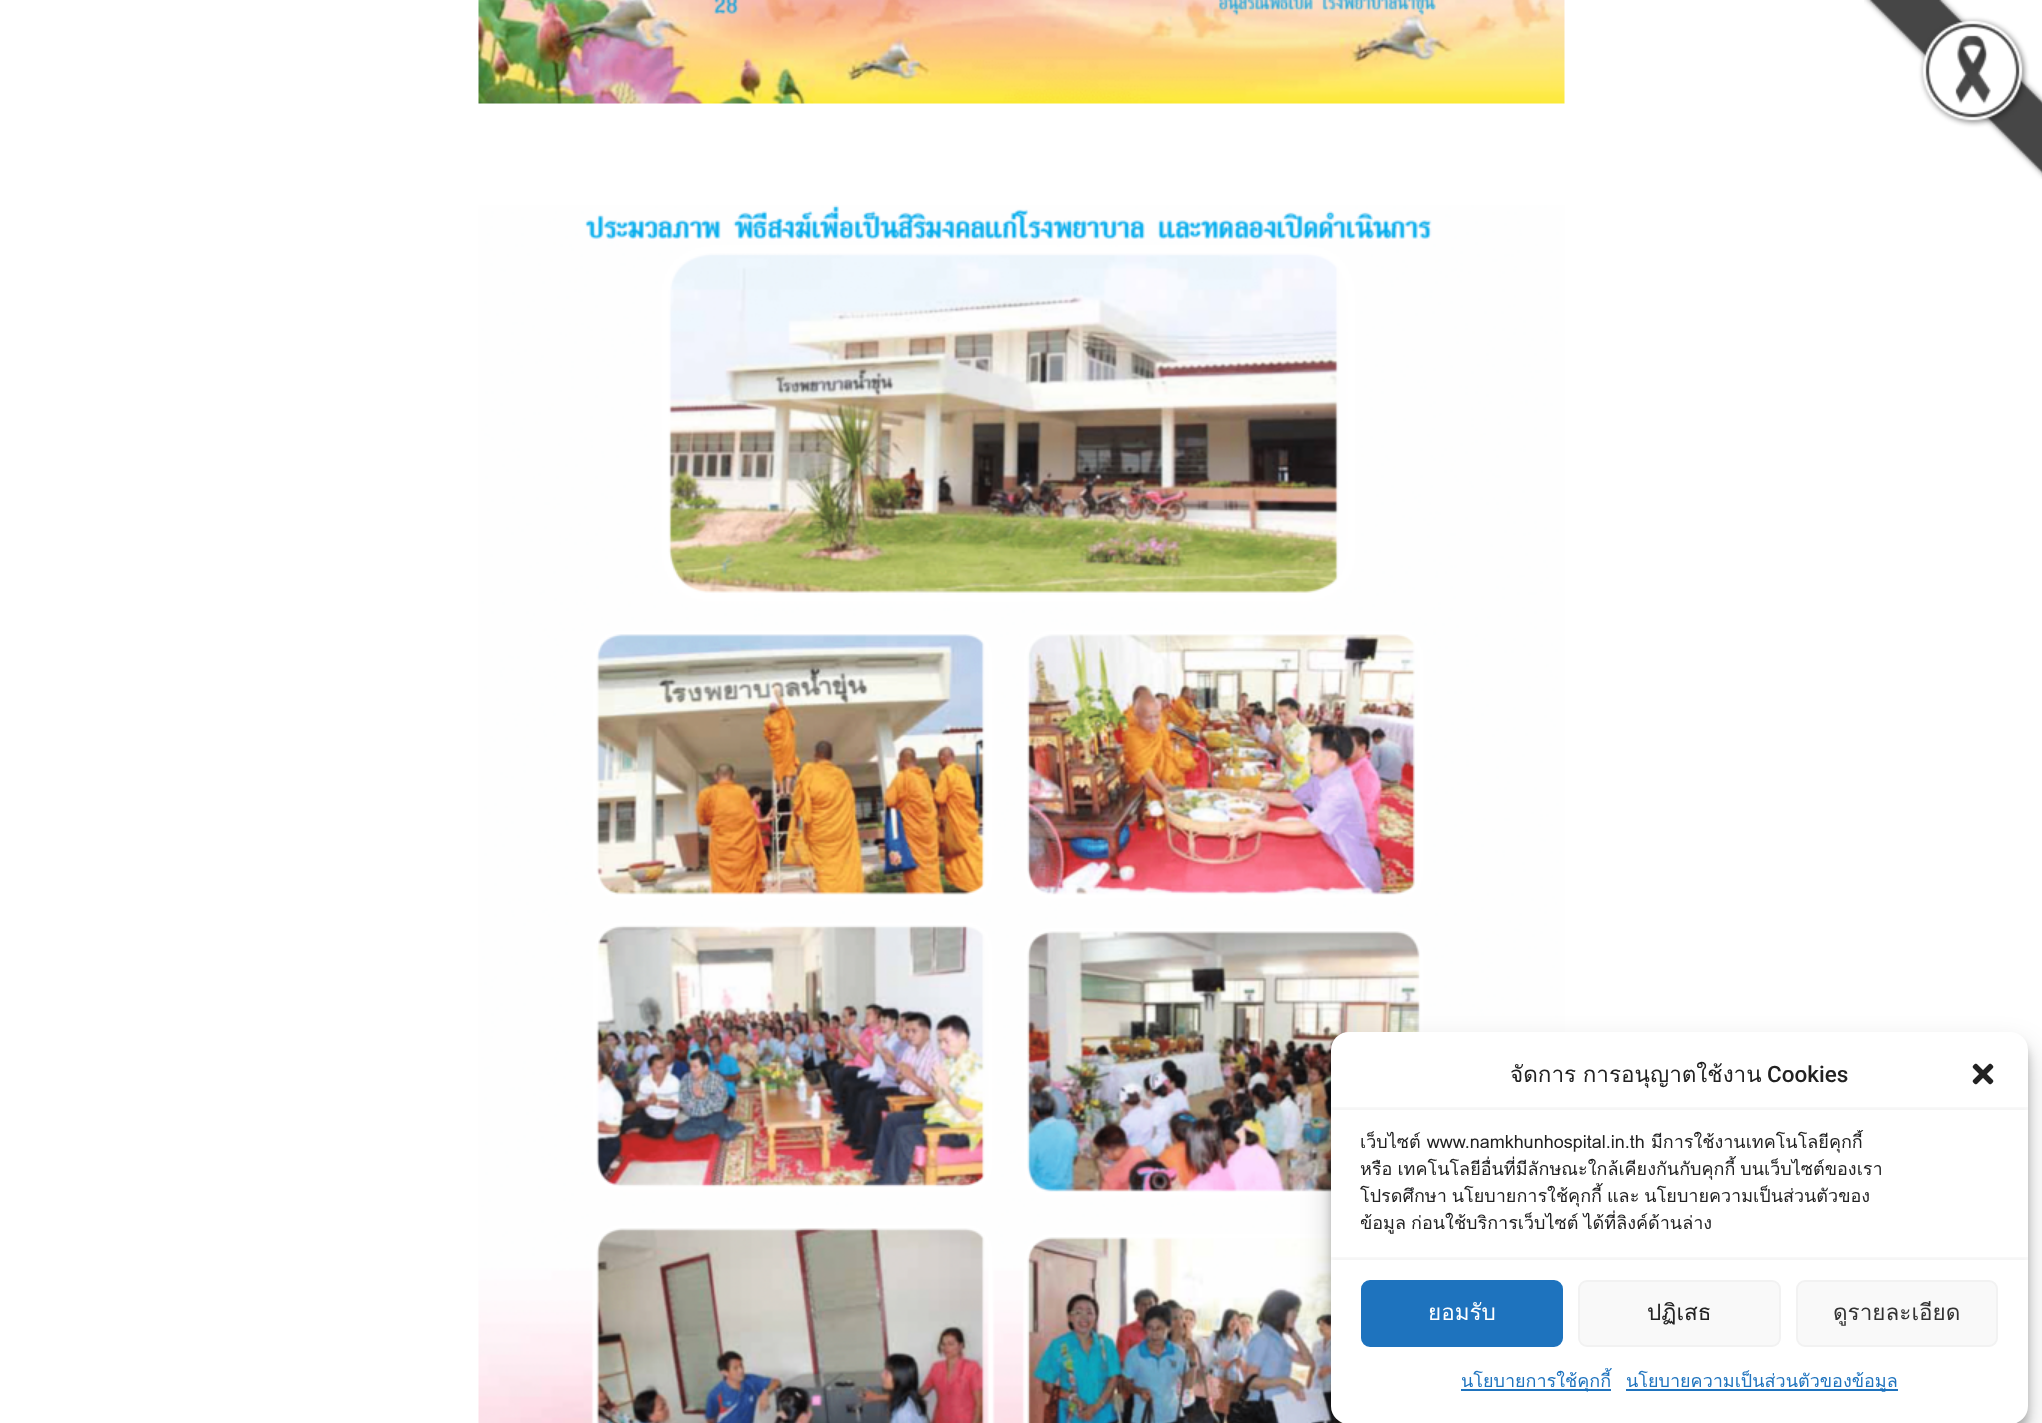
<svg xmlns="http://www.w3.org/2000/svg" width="2042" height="1423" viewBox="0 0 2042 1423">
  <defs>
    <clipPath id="clip1"><rect x="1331" y="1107" width="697" height="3"/></clipPath>
    <clipPath id="clip2"><rect x="1361" y="1130" width="637" height="115"/></clipPath>
    <clipPath id="clip3"><rect x="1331" y="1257" width="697" height="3"/></clipPath>
  </defs>
  <rect width="100%" height="100%" fill="rgb(255,255,255)"/>
  <image x="478" y="0" width="1087" height="104" href="pic1.png"/>
  <image x="478" y="205" width="1087" height="1218" href="pic2.png"/>
  <image x="1864" y="0" width="178" height="179" href="pic3.png"/>
  <rect x="1331" y="1041" width="697" height="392" rx="18" fill="rgba(0,0,0,0.23)" filter="blur(4.5px)"/>
  <rect x="1331" y="1047" width="697" height="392" rx="18" fill="rgba(0,0,0,0.19)" filter="blur(15px)"/>
  <rect x="1331" y="1032" width="697" height="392" rx="18" fill="rgb(255,255,255)"/>
  <text x="1510" y="1082" word-spacing="-1" font-family="Loma" font-size="22.5" fill="rgb(34,34,34)">จัดการ การอนุญาตใช้งาน</text>
  <text x="1767" y="1082" font-family="Roboto" font-size="22.5" font-weight="500" fill="rgb(34,34,34)">Cookies</text>
  <image x="1972" y="1063" width="22" height="22" href="pic4.png"/>
  <g clip-path="url(#clip1)">
    <rect x="1331" y="1107" width="697" height="5" fill="rgba(0,0,0,0.05)" filter="blur(2px)"/>
  </g>
  <g clip-path="url(#clip2)">
    <text x="1360" y="1148" font-family="Loma" font-size="18" fill="rgb(34,34,34)">เว็บไซต์ www.namkhunhospital.in.th มีการใช้งานเทคโนโลยีคุกกี้</text>
  </g>
  <g font-family="Loma" font-size="18" fill="rgb(34,34,34)">
    <text>
      <tspan x="1360" y="1175" word-spacing="-1">หรือ เทคโนโลยีอื่นที่มีลักษณะใกล้เคียงกันกับคุกกี้ บนเว็บไซต์ของเรา</tspan>
      <tspan x="1360" y="1202" word-spacing="-1">โปรดศึกษา นโยบายการใช้คุกกี้ และ นโยบายความเป็นส่วนตัวของ</tspan>
    </text>
  </g>
  <g clip-path="url(#clip2)">
    <text x="1360" y="1229" word-spacing="-1" font-family="Loma" font-size="18" fill="rgb(34,34,34)">ข้อมูล ก่อนใช้บริการเว็บไซต์ ได้ที่ลิงค์ด้านล่าง</text>
  </g>
  <g clip-path="url(#clip3)">
    <rect x="1331" y="1257" width="697" height="5" fill="rgba(0,0,0,0.05)" filter="blur(2px)"/>
  </g>
  <rect x="1362" y="1281" width="200" height="65" rx="8" fill="rgb(30,115,190)" stroke="rgb(30,115,190)" stroke-width="2"/>
  <text x="1428" y="1320" font-family="Loma" font-size="22.5" fill="rgb(255,255,255)">ยอมรับ</text>
  <rect x="1579" y="1281" width="201" height="65" rx="8" fill="rgb(249,249,249)" stroke="rgb(242,242,242)" stroke-width="2"/>
  <text x="1647" y="1320" font-family="Loma" font-size="22.5" fill="rgb(34,34,34)">ปฏิเสธ</text>
  <rect x="1797" y="1281" width="200" height="65" rx="8" fill="rgb(249,249,249)" stroke="rgb(242,242,242)" stroke-width="2"/>
  <text x="1833" y="1320" font-family="Loma" font-size="22.5" fill="rgb(51,51,51)">ดูรายละเอียด</text>
  <rect x="1461" y="1389" width="150" height="2" fill="rgb(30,115,190)"/>
  <text x="1461" y="1387" font-family="Loma" font-size="18" fill="rgb(30,115,190)">นโยบายการใช้คุกกี้</text>
  <rect x="1626" y="1389" width="272" height="2" fill="rgb(30,115,190)"/>
  <text x="1626" y="1387" font-family="Loma" font-size="18" fill="rgb(30,115,190)">นโยบายความเป็นส่วนตัวของข้อมูล</text>
</svg>
